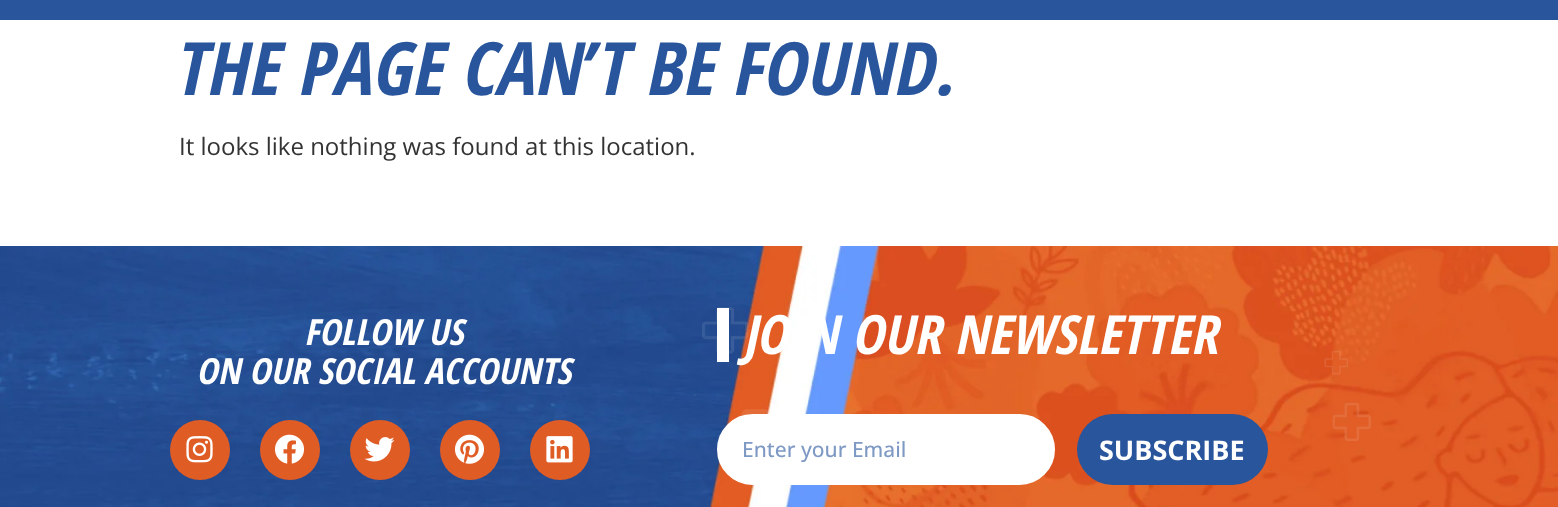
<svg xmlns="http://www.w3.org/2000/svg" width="1558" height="507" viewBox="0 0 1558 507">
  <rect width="100%" height="100%" fill="rgb(255,255,255)"/>
  <rect x="0" y="0" width="1558" height="20" fill="rgb(40,85,156)"/>
  <text x="179" y="95" font-family="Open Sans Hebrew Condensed" font-size="73.5" font-weight="bold" font-style="italic" fill="rgb(40,85,156)">THE PAGE CAN’T BE FOUND.</text>
  <text x="179" y="155" font-family="Open Sans" font-size="24" fill="rgb(51,51,51)">It looks like nothing was found at this location.</text>
  <image x="0" y="246" width="1558" height="261" href="pic1.png"/>
  <g font-family="Open Sans Hebrew Condensed" font-size="36" font-weight="bold" font-style="italic" fill="rgb(255,255,255)">
    <text x="307" y="345">FOLLOW US</text>
    <text x="199" y="384">ON OUR SOCIAL ACCOUNTS</text>
  </g>
  <circle cx="200" cy="450" r="30" fill="rgb(224,92,37)"/>
  <image x="186" y="436" width="27" height="27" href="pic2.png"/>
  <circle cx="290" cy="450" r="30" fill="rgb(224,92,37)"/>
  <image x="275" y="434" width="29" height="30" href="pic3.png"/>
  <circle cx="380" cy="450" r="30" fill="rgb(224,92,37)"/>
  <image x="364" y="437" width="31" height="25" href="pic4.png"/>
  <circle cx="470" cy="450" r="30" fill="rgb(224,92,37)"/>
  <image x="455" y="434" width="29" height="30" href="pic5.png"/>
  <circle cx="560" cy="450" r="30" fill="rgb(224,92,37)"/>
  <image x="546" y="436" width="27" height="27" href="pic6.png"/>
  <image x="693" y="394" width="3" height="2" href="pic7.png"/>
  <image x="702" y="307" width="67" height="178" href="pic8.png"/>
  <rect x="717" y="308" width="12" height="54" fill="rgb(255,255,255)"/>
  <text x="746" y="354" font-family="Open Sans Hebrew Condensed" font-size="54" font-weight="bold" font-style="italic" fill="rgb(255,255,255)">JOIN OUR NEWSLETTER</text>
  <rect x="718" y="415" width="336" height="69" rx="34.5" fill="rgb(255,255,255)" stroke="rgb(255,255,255)" stroke-width="2"/>
  <text x="742" y="457" font-family="Open Sans" font-size="21" font-weight="500" fill="rgb(126,153,196)">Enter your Email</text>
  <rect x="1077" y="414" width="191" height="71" rx="35.5" fill="rgb(40,85,156)"/>
  <text x="1099" y="460" font-family="Open Sans" font-size="27" font-weight="bold" fill="rgb(255,255,255)">SUBSCRIBE</text>
  <image x="1324" y="351" width="47" height="90" href="pic9.png"/>
</svg>
